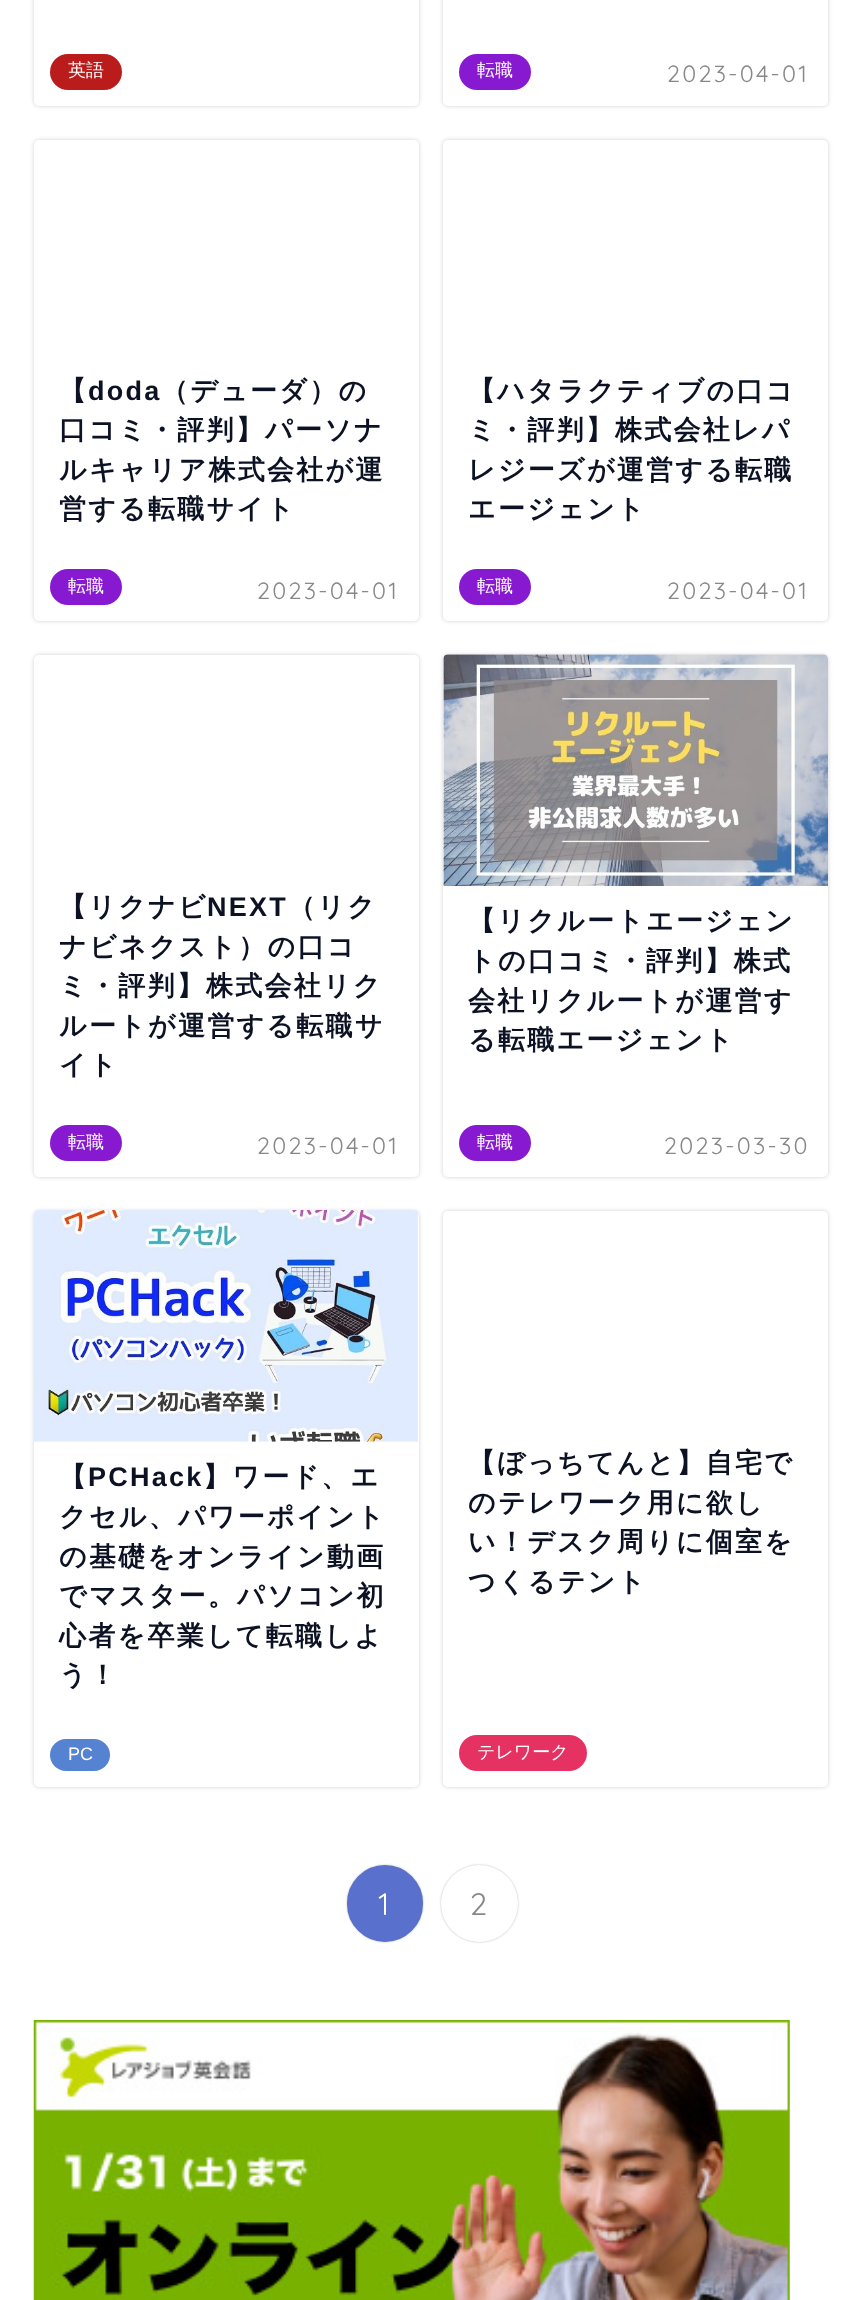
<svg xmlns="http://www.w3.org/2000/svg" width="860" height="2300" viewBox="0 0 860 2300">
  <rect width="100%" height="100%" fill="rgb(255,255,255)"/>
  <rect x="34" y="-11" width="385" height="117" rx="5" fill="rgba(0,0,0,0.18)" filter="blur(2px)"/>
  <rect x="34" y="-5" width="385" height="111" rx="5" fill="rgb(255,255,255)"/>
  <rect x="50" y="54" width="72" height="36" rx="18" fill="rgb(186,27,27)"/>
  <text x="68" y="76" font-family="WenQuanYi Zen Hei" font-size="18" font-weight="500" fill="rgb(255,255,255)">英語</text>
  <rect x="443" y="-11" width="385" height="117" rx="5" fill="rgba(0,0,0,0.18)" filter="blur(2px)"/>
  <rect x="443" y="-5" width="385" height="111" rx="5" fill="rgb(255,255,255)"/>
  <rect x="459" y="54" width="72" height="36" rx="18" fill="rgb(135,25,209)"/>
  <text x="477" y="76" font-family="WenQuanYi Zen Hei" font-size="18" font-weight="500" fill="rgb(255,255,255)">転職</text>
  <text x="667" y="82" font-family="Quicksand" font-size="23.5" font-weight="300" letter-spacing="2.25" fill="rgb(136,136,136)">2023-04-01</text>
  <rect x="34" y="140" width="385" height="481" rx="5" fill="rgba(0,0,0,0.18)" filter="blur(2px)"/>
  <rect x="34" y="140" width="385" height="481" rx="5" fill="rgb(255,255,255)"/>
  <text x="59" y="400" font-family="WenQuanYi Zen Hei" font-size="27" font-weight="bold" letter-spacing="2.25" fill="rgb(12,18,35)">【</text>
  <text x="88" y="400" font-family="Liberation Sans" font-size="27" font-weight="bold" letter-spacing="2.25" fill="rgb(12,18,35)">doda</text>
  <g font-family="WenQuanYi Zen Hei" font-size="27" font-weight="bold" letter-spacing="2.25" fill="rgb(12,18,35)">
    <text x="161" y="400">（デューダ）の</text>
    <text>
      <tspan x="59" y="439">口コミ・評判】パーソナ</tspan>
      <tspan x="59" y="479">ルキャリア株式会社が運</tspan>
      <tspan x="59" y="518">営する転職サイト</tspan>
    </text>
  </g>
  <rect x="50" y="569" width="72" height="36" rx="18" fill="rgb(135,25,209)"/>
  <text x="68" y="592" font-family="WenQuanYi Zen Hei" font-size="18" font-weight="500" fill="rgb(255,255,255)">転職</text>
  <text x="257" y="599" font-family="Quicksand" font-size="23.5" font-weight="300" letter-spacing="2.25" fill="rgb(136,136,136)">2023-04-01</text>
  <rect x="443" y="140" width="385" height="481" rx="5" fill="rgba(0,0,0,0.18)" filter="blur(2px)"/>
  <rect x="443" y="140" width="385" height="481" rx="5" fill="rgb(255,255,255)"/>
  <g font-family="WenQuanYi Zen Hei" font-size="27" font-weight="bold" letter-spacing="2.25" fill="rgb(12,18,35)">
    <text>
      <tspan x="468" y="400">【ハタラクティブの口コ</tspan>
      <tspan x="468" y="439">ミ・評判】株式会社レパ</tspan>
      <tspan x="468" y="479">レジーズが運営する転職</tspan>
      <tspan x="468" y="518">エージェント</tspan>
    </text>
  </g>
  <rect x="459" y="569" width="72" height="36" rx="18" fill="rgb(135,25,209)"/>
  <text x="477" y="592" font-family="WenQuanYi Zen Hei" font-size="18" font-weight="500" fill="rgb(255,255,255)">転職</text>
  <text x="667" y="599" font-family="Quicksand" font-size="23.5" font-weight="300" letter-spacing="2.25" fill="rgb(136,136,136)">2023-04-01</text>
  <rect x="34" y="655" width="385" height="522" rx="5" fill="rgba(0,0,0,0.18)" filter="blur(2px)"/>
  <rect x="34" y="655" width="385" height="522" rx="5" fill="rgb(255,255,255)"/>
  <text x="59" y="916" font-family="WenQuanYi Zen Hei" font-size="27" font-weight="bold" letter-spacing="2.25" fill="rgb(12,18,35)">【リクナビ</text>
  <text x="207" y="916" font-family="Liberation Sans" font-size="27" font-weight="bold" letter-spacing="2.25" fill="rgb(12,18,35)">NEXT</text>
  <g font-family="WenQuanYi Zen Hei" font-size="27" font-weight="bold" letter-spacing="2.25" fill="rgb(12,18,35)">
    <text x="288" y="916">（リク</text>
    <text>
      <tspan x="59" y="956">ナビネクスト）の口コ</tspan>
      <tspan x="59" y="995">ミ・評判】株式会社リク</tspan>
      <tspan x="59" y="1035">ルートが運営する転職サ</tspan>
      <tspan x="59" y="1074">イト</tspan>
    </text>
  </g>
  <rect x="50" y="1125" width="72" height="36" rx="18" fill="rgb(135,25,209)"/>
  <text x="68" y="1148" font-family="WenQuanYi Zen Hei" font-size="18" font-weight="500" fill="rgb(255,255,255)">転職</text>
  <text x="257" y="1154" font-family="Quicksand" font-size="23.5" font-weight="300" letter-spacing="2.25" fill="rgb(136,136,136)">2023-04-01</text>
  <rect x="443" y="655" width="385" height="522" rx="5" fill="rgba(0,0,0,0.18)" filter="blur(2px)"/>
  <rect x="443" y="655" width="385" height="522" rx="5" fill="rgb(255,255,255)"/>
  <image x="443" y="654" width="385" height="232" href="pic1.png"/>
  <g font-family="WenQuanYi Zen Hei" font-size="27" font-weight="bold" letter-spacing="2.25" fill="rgb(12,18,35)">
    <text>
      <tspan x="468" y="930">【リクルートエージェン</tspan>
      <tspan x="468" y="970">トの口コミ・評判】株式</tspan>
      <tspan x="468" y="1010">会社リクルートが運営す</tspan>
      <tspan x="468" y="1049">る転職エージェント</tspan>
    </text>
  </g>
  <rect x="459" y="1125" width="72" height="36" rx="18" fill="rgb(135,25,209)"/>
  <text x="477" y="1148" font-family="WenQuanYi Zen Hei" font-size="18" font-weight="500" fill="rgb(255,255,255)">転職</text>
  <text x="664" y="1154" font-family="Quicksand" font-size="23.5" font-weight="300" letter-spacing="2.25" fill="rgb(136,136,136)">2023-03-30</text>
  <rect x="34" y="1211" width="385" height="576" rx="5" fill="rgba(0,0,0,0.18)" filter="blur(2px)"/>
  <rect x="34" y="1211" width="385" height="576" rx="5" fill="rgb(255,255,255)"/>
  <image x="34" y="1210" width="385" height="232" href="pic2.png"/>
  <text x="59" y="1486" font-family="WenQuanYi Zen Hei" font-size="27" font-weight="bold" letter-spacing="2.25" fill="rgb(12,18,35)">【</text>
  <text x="88" y="1486" font-family="Liberation Sans" font-size="27" font-weight="bold" letter-spacing="2.25" fill="rgb(12,18,35)">PCHack</text>
  <g font-family="WenQuanYi Zen Hei" font-size="27" font-weight="bold" letter-spacing="2.25" fill="rgb(12,18,35)">
    <text x="203" y="1486">】ワード、エ</text>
    <text>
      <tspan x="59" y="1526">クセル、パワーポイント</tspan>
      <tspan x="59" y="1566">の基礎をオンライン動画</tspan>
      <tspan x="59" y="1605">でマスター。パソコン初</tspan>
      <tspan x="59" y="1645">心者を卒業して転職しよ</tspan>
      <tspan x="59" y="1684">う！</tspan>
    </text>
  </g>
  <rect x="50" y="1739" width="60" height="32" rx="16" fill="rgb(85,130,209)"/>
  <text x="68" y="1760" font-family="Liberation Sans" font-size="18" fill="rgb(255,255,255)">PC</text>
  <rect x="443" y="1211" width="385" height="576" rx="5" fill="rgba(0,0,0,0.18)" filter="blur(2px)"/>
  <rect x="443" y="1211" width="385" height="576" rx="5" fill="rgb(255,255,255)"/>
  <g font-family="WenQuanYi Zen Hei" font-size="27" font-weight="bold" letter-spacing="2.25" fill="rgb(12,18,35)">
    <text>
      <tspan x="468" y="1472">【ぼっちてんと】自宅で</tspan>
      <tspan x="468" y="1512">のテレワーク用に欲し</tspan>
      <tspan x="468" y="1551">い！デスク周りに個室を</tspan>
      <tspan x="468" y="1591">つくるテント</tspan>
    </text>
  </g>
  <rect x="459" y="1735" width="128" height="36" rx="18" fill="rgb(229,50,98)"/>
  <text x="477" y="1758" font-family="WenQuanYi Zen Hei" font-size="18" font-weight="500" fill="rgb(255,255,255)">テレワーク</text>
  <rect x="347" y="1865" width="76" height="77" rx="38" fill="rgba(0,0,0,0.25)" filter="blur(1px)"/>
  <rect x="348" y="1866" width="74" height="75" rx="37" fill="rgb(89,112,204)" stroke="rgb(89,112,204)" stroke-width="2"/>
  <text x="378" y="1915" font-family="Quicksand" font-size="31" font-weight="300" letter-spacing="4" fill="rgb(255,255,255)">1</text>
  <rect x="441" y="1865" width="77" height="77" rx="38.5" fill="rgba(0,0,0,0.25)" filter="blur(1px)"/>
  <circle cx="479.5" cy="1903.5" r="38.5" fill="rgb(255,255,255)"/>
  <text x="470" y="1915" font-family="Quicksand" font-size="31" font-weight="300" letter-spacing="4" fill="rgb(136,136,136)">2</text>
  <image x="33" y="2020" width="757" height="280" href="pic3.png"/>
</svg>
